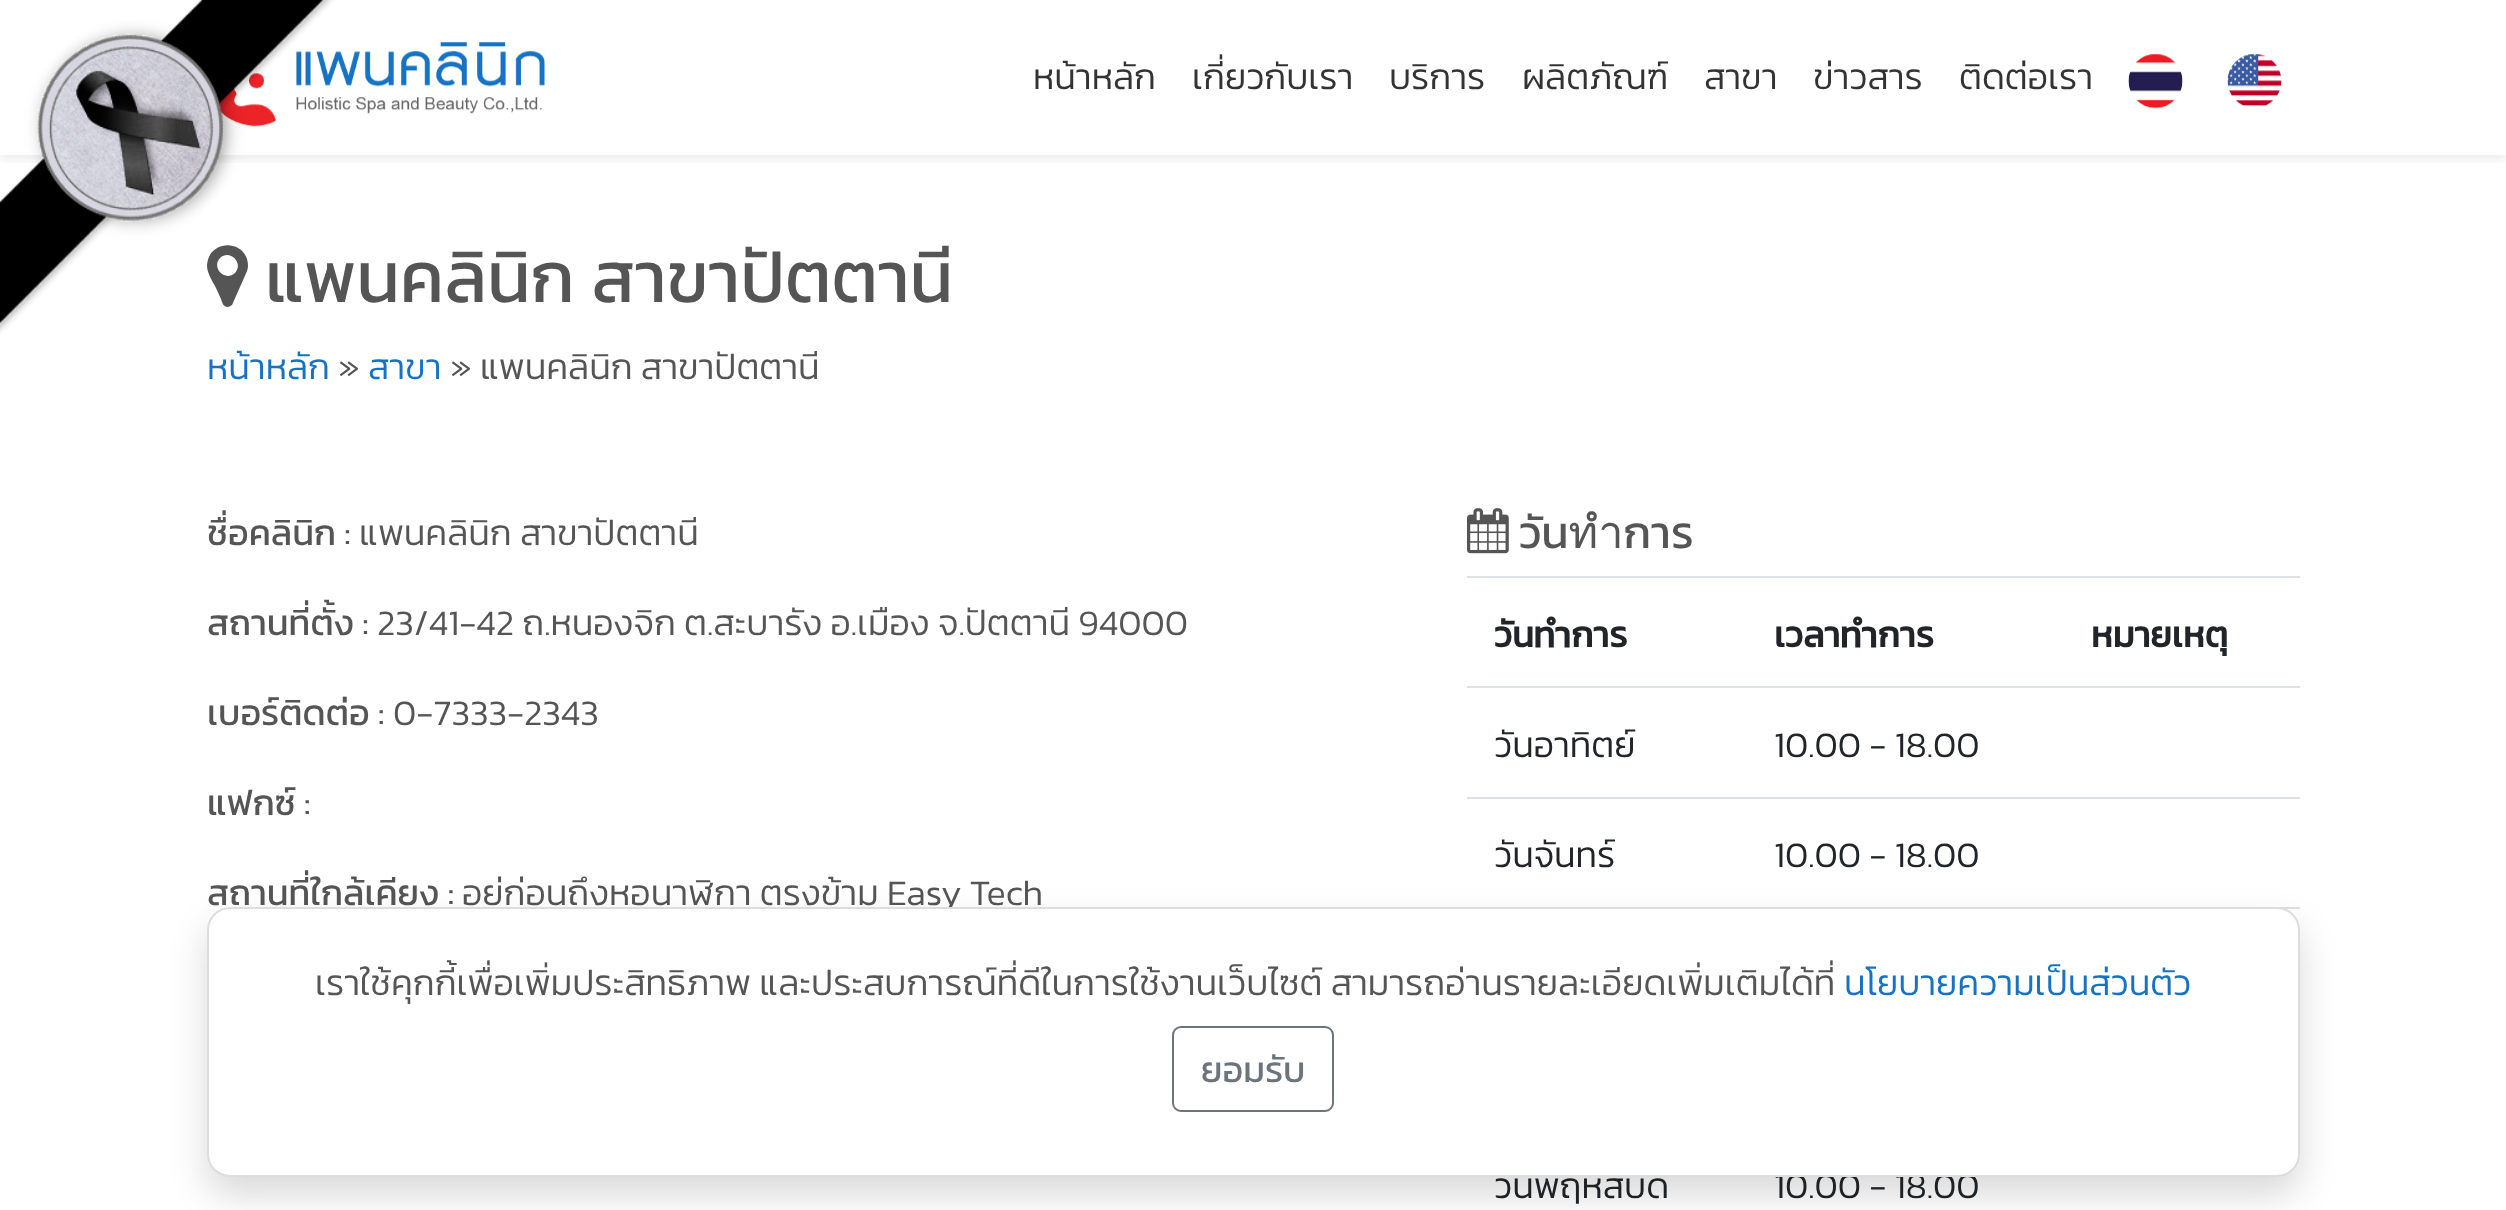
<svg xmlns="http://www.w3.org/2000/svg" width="2506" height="1210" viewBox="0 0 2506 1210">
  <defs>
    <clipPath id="clip1"><rect x="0" y="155" width="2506" height="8"/></clipPath>
  </defs>
  <rect width="100%" height="100%" fill="rgb(255,255,255)"/>
  <g clip-path="url(#clip1)">
    <rect x="0" y="5" width="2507" height="155" fill="rgba(0,0,0,0.07)" filter="blur(4.5px)"/>
  </g>
  <image x="219" y="42" width="326" height="85" href="pic2.png"/>
  <path d="M235 273C244 263 230 249 220 258C211 268 225 282 235 273ZM248 266C248 270 246 273 244 278L232 305C231 306 230 306 228 307C223 307 222 302 221 299L216 288C213 282 207 273 207 266C208 238 248 239 248 266Z" fill="rgb(85,85,85)"/>
  <text x="265" y="302" font-family="Kanit" font-size="72" fill="rgb(85,85,85)">แพนคลินิก สาขาปัตตานี</text>
  <image x="0" y="0" width="334" height="334" href="pic1.png"/>
  <g font-family="Kanit" font-size="36" font-weight="300" fill="rgb(51,51,51)">
    <text x="1033" y="89">หน้าหลัก</text>
    <text x="1192" y="89">เกี่ยวกับเรา</text>
    <text x="1389" y="89">บริการ</text>
    <text x="1522" y="89">ผลิตภัณฑ์</text>
    <text x="1704" y="89">สาขา</text>
    <text x="1813" y="89">ข่าวสาร</text>
    <text x="1959" y="89">ติดต่อเรา</text>
  </g>
  <image x="2128" y="53" width="55" height="56" href="pic3.png"/>
  <image x="2227" y="53" width="55" height="54" href="pic4.png"/>
  <text x="207" y="379" font-family="Kanit" font-size="36" font-weight="300" fill="rgb(22,115,195)">หน้าหลัก</text>
  <text x="338" y="379" font-family="Kanit" font-size="36" font-weight="300" fill="rgb(85,85,85)">»</text>
  <text x="368" y="379" font-family="Kanit" font-size="36" font-weight="300" fill="rgb(22,115,195)">สาขา</text>
  <text x="450" y="379" font-family="Kanit" font-size="36" font-weight="300" fill="rgb(85,85,85)">» แพนคลินิก สาขาปัตตานี</text>
  <text x="207" y="545" font-family="Kanit" font-size="36" fill="rgb(85,85,85)">ชื่อคลินิก :</text>
  <text x="359" y="545" font-family="Kanit" font-size="36" font-weight="300" fill="rgb(85,85,85)">แพนคลินิก สาขาปัตตานี</text>
  <text x="207" y="635" font-family="Kanit" font-size="36" fill="rgb(85,85,85)">สถานที่ตั้ง :</text>
  <text x="377" y="635" font-family="Kanit" font-size="36" font-weight="300" fill="rgb(85,85,85)">23/41-42 ถ.หนองจิก ต.สะบารัง อ.เมือง จ.ปัตตานี 94000</text>
  <text x="207" y="725" font-family="Kanit" font-size="36" fill="rgb(85,85,85)">เบอร์ติดต่อ :</text>
  <text x="393" y="725" font-family="Kanit" font-size="36" font-weight="300" fill="rgb(85,85,85)">0-7333-2343</text>
  <g font-family="Kanit" font-size="36" fill="rgb(85,85,85)">
    <text x="207" y="815">แฟกซ์ :</text>
    <text x="207" y="905">สถานที่ใกล้เคียง :</text>
  </g>
  <text x="462" y="905" font-family="Kanit" font-size="36" font-weight="300" fill="rgb(85,85,85)">อยู่ก่อนถึงหอนาฬิกา ตรงข้าม Easy Tech</text>
  <image x="1467" y="508" width="42" height="46" href="pic5.png"/>
  <text x="1519" y="548" font-family="Kanit" font-size="45" fill="rgb(85,85,85)">วันทำการ</text>
  <g font-family="Kanit" font-size="36" font-weight="bold" fill="rgb(33,37,41)">
    <text x="1494" y="647">วันทำการ</text>
    <text x="1774" y="647">เวลาทำการ</text>
  </g>
  <rect x="1467" y="576" width="833" height="2" fill="rgb(222,226,230)"/>
  <text x="2091" y="647" font-family="Kanit" font-size="36" font-weight="bold" fill="rgb(33,37,41)">หมายเหตุ</text>
  <rect x="1467" y="686" width="833" height="2" fill="rgb(222,226,230)"/>
  <g font-family="Kanit" font-size="36" font-weight="300" fill="rgb(33,37,41)">
    <text x="1494" y="757">วันอาทิตย์</text>
    <text x="1774" y="757">10.00 - 18.00</text>
  </g>
  <rect x="1467" y="797" width="833" height="2" fill="rgb(222,226,230)"/>
  <g font-family="Kanit" font-size="36" font-weight="300" fill="rgb(33,37,41)">
    <text x="1494" y="867">วันจันทร์</text>
    <text x="1774" y="867">10.00 - 18.00</text>
  </g>
  <rect x="2277" y="907" width="23" height="2" fill="rgb(222,226,230)"/>
  <g font-family="Kanit" font-size="36" font-weight="300" fill="rgb(33,37,41)">
    <text x="1494" y="1198">วันพฤหัสบดี</text>
    <text x="1774" y="1198">10.00 - 18.00</text>
  </g>
  <rect x="207" y="925" width="2093" height="270" rx="23" fill="rgba(0,0,0,0.15)" filter="blur(18px)"/>
  <rect x="208" y="908" width="2091" height="268" rx="22" fill="rgb(255,255,255)" stroke="rgb(221,221,221)" stroke-width="2"/>
  <text x="315" y="995" font-family="Kanit" font-size="36" font-weight="300" fill="rgb(85,85,85)">เราใช้คุกกี้เพื่อเพิ่มประสิทธิภาพ และประสบการณ์ที่ดีในการใช้งานเว็บไซต์ สามารถอ่านรายละเอียดเพิ่มเติมได้ที่</text>
  <text x="1844" y="995" font-family="Kanit" font-size="36" font-weight="300" fill="rgb(22,115,195)">นโยบายความเป็นส่วนตัว</text>
  <rect x="1173" y="1027" width="160" height="84" rx="8" fill="none" stroke="rgb(108,117,125)" stroke-width="2"/>
  <text x="1201" y="1082" font-family="Kanit" font-size="36" fill="rgb(108,117,125)">ยอมรับ</text>
</svg>
